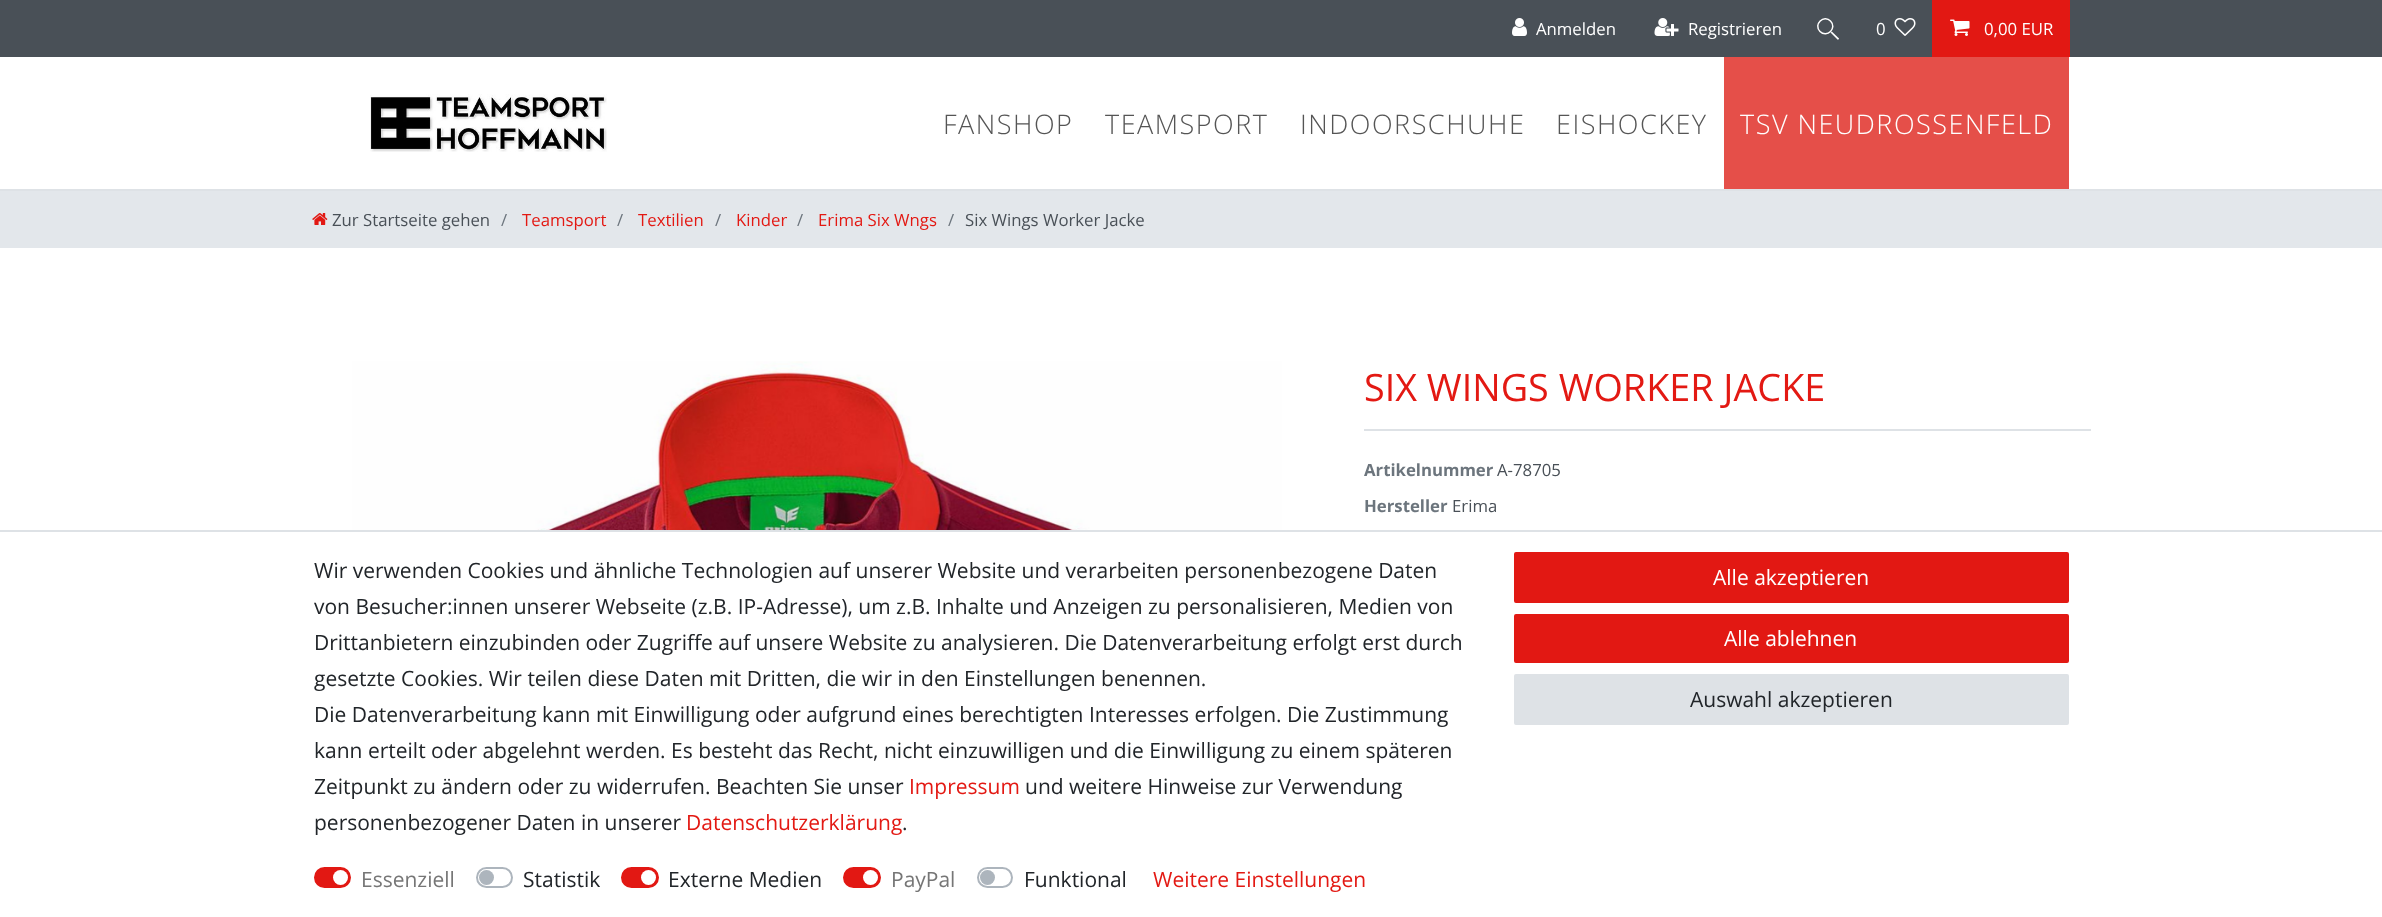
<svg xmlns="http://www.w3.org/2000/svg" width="2382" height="917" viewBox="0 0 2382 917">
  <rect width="100%" height="100%" fill="rgb(255,255,255)"/>
  <rect x="0" y="0" width="2382" height="57" fill="rgb(73,80,87)"/>
  <image x="1512" y="18" width="15" height="18" href="pic1.png"/>
  <text x="1536" y="35" font-family="Open Sans" font-size="16.75" fill="rgb(255,255,255)">Anmelden</text>
  <image x="1654" y="18" width="25" height="18" href="pic2.png"/>
  <text x="1688" y="35" font-family="Open Sans" font-size="16.75" fill="rgb(255,255,255)">Registrieren</text>
  <path d="M1837.5 39.5L1822.5 24.5V24C1823 23.5 1823 23.5 1823.5 23.5L1839 38.5C1839 39.5 1838 40 1837.5 39.5Z" fill="rgb(255,255,255)"/>
  <path d="M1819.5 32C1812 24.5 1823.5 13 1831.5 20.5C1839 28 1827.5 40 1819.5 32Z" fill="rgb(73,80,87)"/>
  <path d="M1820 31.5C1813 24.5 1824 14 1830.5 21C1837.5 28 1827 38.5 1820 31.5Z" fill="none" stroke="rgb(255,255,255)" stroke-width="1.5"/>
  <text x="1876" y="35" font-family="Open Sans" font-size="16.75" fill="rgb(255,255,255)">0</text>
  <image x="1894" y="18" width="22" height="18" href="pic3.png"/>
  <rect x="1932" y="0" width="138" height="57" fill="rgb(226,24,19)"/>
  <image x="1950" y="19" width="20" height="17" href="pic4.png"/>
  <text x="1984" y="35" font-family="Open Sans" font-size="16.75" fill="rgb(255,255,255)">0,00 EUR</text>
  <rect x="0" y="189" width="2382" height="2" fill="rgb(222,226,230)"/>
  <image x="370" y="94" width="237" height="58" href="pic5.png"/>
  <g font-family="Open Sans" font-size="27" font-weight="300" letter-spacing="1.5" fill="rgb(85,85,85)">
    <text x="943" y="134">FANSHOP</text>
    <text x="1105" y="134">TEAMSPORT</text>
    <text x="1300" y="134">INDOORSCHUHE</text>
    <text x="1556" y="134">EISHOCKEY</text>
  </g>
  <rect x="1724" y="57" width="345" height="132" fill="rgb(229,79,73)"/>
  <text x="1740" y="134" font-family="Open Sans" font-size="27" font-weight="300" letter-spacing="1.5" fill="rgb(255,255,255)">TSV NEUDROSSENFELD</text>
  <rect x="0" y="191" width="2382" height="57" fill="rgb(227,231,235)"/>
  <image x="312" y="213" width="16" height="12" href="pic6.png"/>
  <text x="332" y="226" font-family="Open Sans" font-size="16.75" fill="rgb(73,80,87)">Zur Startseite gehen</text>
  <text x="501" y="226" font-family="Open Sans" font-size="16.75" fill="rgb(108,117,125)">/</text>
  <text x="522" y="226" font-family="Open Sans" font-size="16.75" fill="rgb(227,25,19)">Teamsport</text>
  <text x="617" y="226" font-family="Open Sans" font-size="16.75" fill="rgb(108,117,125)">/</text>
  <text x="638" y="226" font-family="Open Sans" font-size="16.75" fill="rgb(227,25,19)">Textilien</text>
  <text x="715" y="226" font-family="Open Sans" font-size="16.75" fill="rgb(108,117,125)">/</text>
  <text x="736" y="226" font-family="Open Sans" font-size="16.75" fill="rgb(227,25,19)">Kinder</text>
  <text x="797" y="226" font-family="Open Sans" font-size="16.75" fill="rgb(108,117,125)">/</text>
  <text x="818" y="226" font-family="Open Sans" font-size="16.75" fill="rgb(227,25,19)">Erima Six Wngs</text>
  <text x="948" y="226" font-family="Open Sans" font-size="16.75" fill="rgb(108,117,125)">/</text>
  <text x="965" y="226" font-family="Open Sans" font-size="16.75" fill="rgb(73,80,87)">Six Wings Worker Jacke</text>
  <image x="352" y="361" width="930" height="169" href="pic7.png"/>
  <text x="1364" y="401" font-family="Open Sans" font-size="37.75" fill="rgb(227,25,19)">SIX WINGS WORKER JACKE</text>
  <rect x="1364" y="429" width="727" height="2" fill="rgb(222,226,230)"/>
  <text x="1364" y="476" font-family="Open Sans" font-size="16.75" font-weight="bold" fill="rgb(108,117,125)">Artikelnummer</text>
  <text x="1497" y="476" font-family="Open Sans" font-size="16.75" fill="rgb(73,80,87)">A-78705</text>
  <text x="1364" y="512" font-family="Open Sans" font-size="16.75" font-weight="bold" fill="rgb(108,117,125)">Hersteller</text>
  <text x="1452" y="512" font-family="Open Sans" font-size="16.75" fill="rgb(73,80,87)">Erima</text>
  <rect x="0" y="530" width="2382" height="2" fill="rgb(222,226,230)"/>
  <g font-family="Open Sans" font-size="21" fill="rgb(33,37,41)">
    <text>
      <tspan x="314" y="578">Wir verwenden Cookies und ähnliche Technologien auf unserer Website und verarbeiten personenbezogene Daten</tspan>
      <tspan x="314" y="614">von Besucher:innen unserer Webseite (z.B. IP-Adresse), um z.B. Inhalte und Anzeigen zu personalisieren, Medien von</tspan>
      <tspan x="314" y="650">Drittanbietern einzubinden oder Zugriffe auf unsere Website zu analysieren. Die Datenverarbeitung erfolgt erst durch</tspan>
      <tspan x="314" y="686">gesetzte Cookies. Wir teilen diese Daten mit Dritten, die wir in den Einstellungen benennen.</tspan>
      <tspan x="314" y="722">Die Datenverarbeitung kann mit Einwilligung oder aufgrund eines berechtigten Interesses erfolgen. Die Zustimmung</tspan>
      <tspan x="314" y="758">kann erteilt oder abgelehnt werden. Es besteht das Recht, nicht einzuwilligen und die Einwilligung zu einem späteren</tspan>
      <tspan x="314" y="794">Zeitpunkt zu ändern oder zu widerrufen. Beachten Sie unser</tspan>
    </text>
  </g>
  <text x="909" y="794" font-family="Open Sans" font-size="21" fill="rgb(227,25,19)">Impressum</text>
  <g font-family="Open Sans" font-size="21" fill="rgb(33,37,41)">
    <text x="1025" y="794">und weitere Hinweise zur Verwendung</text>
    <text x="314" y="830">personenbezogener Daten in unserer</text>
  </g>
  <text x="686" y="830" font-family="Open Sans" font-size="21" fill="rgb(227,25,19)">Datenschutzerklärung</text>
  <text x="902" y="830" font-family="Open Sans" font-size="21" fill="rgb(33,37,41)">.</text>
  <rect x="315" y="868" width="35" height="19" rx="9.5" fill="rgb(226,24,19)" stroke="rgb(226,24,19)" stroke-width="2"/>
  <circle cx="340.5" cy="877.5" r="7.5" fill="rgb(255,255,255)"/>
  <text x="361" y="887" font-family="Open Sans" font-size="21" fill="rgb(118,118,118)">Essenziell</text>
  <rect x="477" y="868" width="35" height="19" rx="9.5" fill="none" stroke="rgb(173,181,189)" stroke-width="2"/>
  <circle cx="486.5" cy="877.5" r="7.5" fill="rgb(173,181,189)"/>
  <text x="523" y="887" font-family="Open Sans" font-size="21" fill="rgb(33,37,41)">Statistik</text>
  <rect x="622" y="868" width="36" height="19" rx="9.5" fill="rgb(226,24,19)" stroke="rgb(226,24,19)" stroke-width="2"/>
  <circle cx="648.5" cy="877.5" r="7.5" fill="rgb(255,255,255)"/>
  <text x="668" y="887" font-family="Open Sans" font-size="21" fill="rgb(33,37,41)">Externe Medien</text>
  <rect x="844" y="868" width="36" height="19" rx="9.5" fill="rgb(226,24,19)" stroke="rgb(226,24,19)" stroke-width="2"/>
  <circle cx="870.5" cy="877.5" r="7.5" fill="rgb(255,255,255)"/>
  <text x="891" y="887" font-family="Open Sans" font-size="21" fill="rgb(118,118,118)">PayPal</text>
  <rect x="978" y="868" width="34" height="19" rx="9.5" fill="none" stroke="rgb(173,181,189)" stroke-width="2"/>
  <circle cx="987.5" cy="877.5" r="7.5" fill="rgb(173,181,189)"/>
  <text x="1024" y="887" font-family="Open Sans" font-size="21" fill="rgb(33,37,41)">Funktional</text>
  <text x="1153" y="887" font-family="Open Sans" font-size="21" fill="rgb(227,25,19)">Weitere Einstellungen</text>
  <rect x="1515" y="553" width="553" height="49" rx="1" fill="rgb(226,24,19)" stroke="rgb(226,24,19)" stroke-width="2"/>
  <text x="1713" y="585" font-family="Open Sans" font-size="21" fill="rgb(255,255,255)">Alle akzeptieren</text>
  <rect x="1515" y="615" width="553" height="47" rx="1" fill="rgb(226,24,19)" stroke="rgb(226,24,19)" stroke-width="2"/>
  <text x="1724" y="646" font-family="Open Sans" font-size="21" fill="rgb(255,255,255)">Alle ablehnen</text>
  <rect x="1515" y="675" width="553" height="49" rx="1" fill="rgb(222,226,230)" stroke="rgb(222,226,230)" stroke-width="2"/>
  <text x="1690" y="707" font-family="Open Sans" font-size="21" fill="rgb(33,37,41)">Auswahl akzeptieren</text>
</svg>
